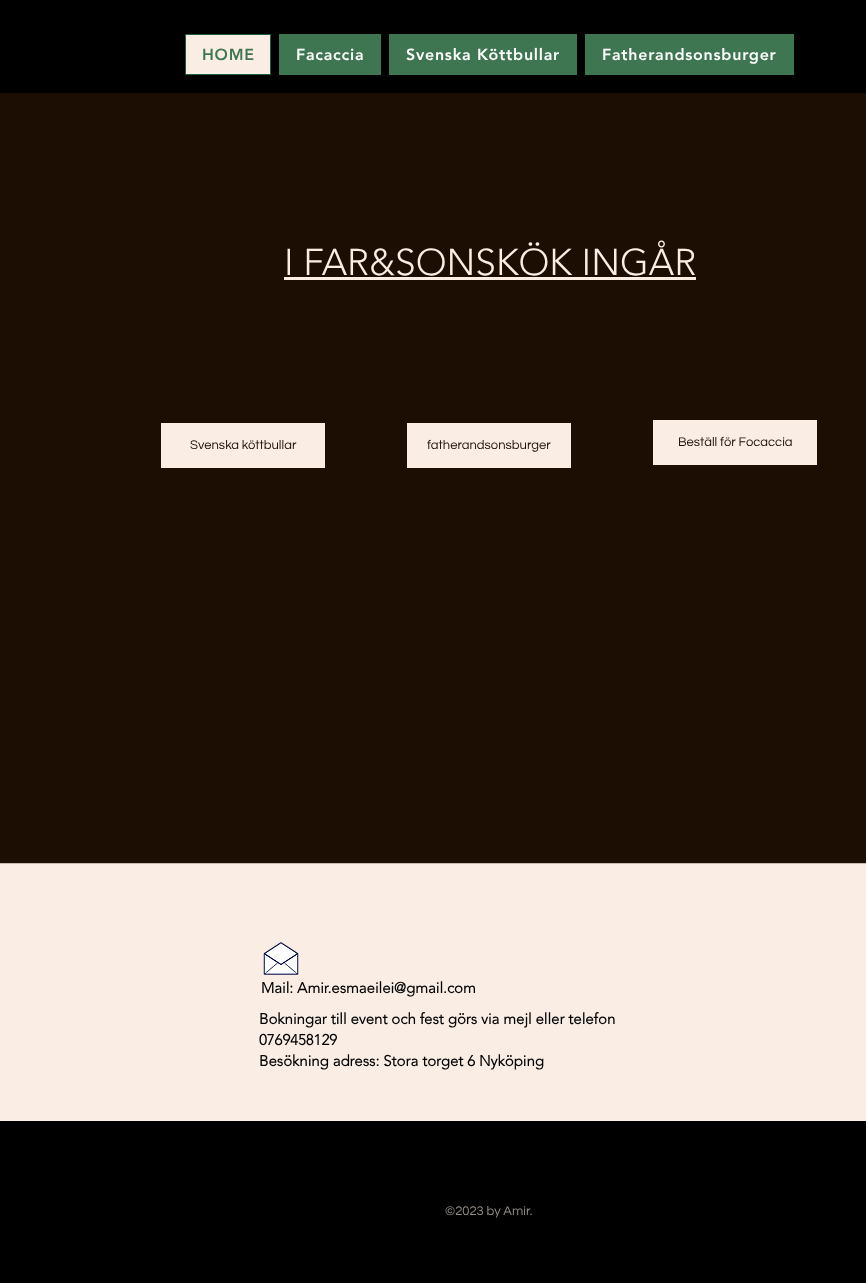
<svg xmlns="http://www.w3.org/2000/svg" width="866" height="1283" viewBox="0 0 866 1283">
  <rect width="100%" height="100%" fill="rgb(0,0,0)"/>
  <rect x="185.5" y="34.5" width="85" height="40" fill="rgb(250,237,227)" stroke="rgb(27,91,63)"/>
  <text x="202" y="60" font-family="'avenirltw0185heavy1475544'" font-size="16" font-weight="900" letter-spacing="0.75" fill="rgb(63,118,82)">HOME</text>
  <rect x="279" y="34" width="102" height="41" fill="rgb(63,118,82)"/>
  <text x="296" y="60" font-family="'avenirltw0185heavy1475544'" font-size="16" font-weight="900" letter-spacing="0.75" fill="rgb(255,255,255)">Facaccia</text>
  <rect x="389" y="34" width="188" height="41" fill="rgb(63,118,82)"/>
  <text x="406" y="60" font-family="'avenirltw0185heavy1475544'" font-size="16" font-weight="900" letter-spacing="0.75" fill="rgb(255,255,255)">Svenska Köttbullar</text>
  <rect x="585" y="34" width="209" height="41" fill="rgb(63,118,82)"/>
  <text x="602" y="60" font-family="'avenirltw0185heavy1475544'" font-size="16" font-weight="900" letter-spacing="0.75" fill="rgb(255,255,255)">Fatherandsonsburger</text>
  <rect x="0" y="93" width="866" height="770" fill="rgb(29,14,3)"/>
  <text x="284" y="275" font-family="'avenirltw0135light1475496'" font-size="37" font-weight="300" fill="rgb(250,237,227)">I FAR&amp;SONSKÖK INGÅR</text>
  <rect x="284" y="277" width="412" height="3" fill="rgb(250,237,227)"/>
  <rect x="161" y="423" width="164" height="45" fill="rgb(250,237,227)"/>
  <text x="190" y="449" font-family="Questrial" font-size="13" fill="rgb(29,14,3)">Svenska köttbullar</text>
  <rect x="407" y="423" width="164" height="45" fill="rgb(250,237,227)"/>
  <text x="427" y="449" font-family="Questrial" font-size="13" fill="rgb(29,14,3)">fatherandsonsburger</text>
  <rect x="653" y="420" width="164" height="45" fill="rgb(250,237,227)"/>
  <text x="678" y="446" font-family="Questrial" font-size="13" fill="rgb(29,14,3)">Beställ för Focaccia</text>
  <rect x="0" y="863" width="866" height="1" fill="rgb(200,189,180)"/>
  <rect x="0" y="864" width="866" height="257" fill="rgb(250,237,227)"/>
  <image x="263" y="942" width="36" height="33" href="pic1.png"/>
  <g font-family="'avenirltw0135light1475496'" font-size="15" font-weight="bold" fill="rgb(0,0,0)">
    <text x="261" y="993">Mail: Amir.esmaeilei@gmail.com</text>
    <text>
      <tspan x="259" y="1024">Bokningar till event och fest görs via mejl eller telefon</tspan>
      <tspan x="259" y="1045">0769458129</tspan>
      <tspan x="259" y="1066">Besökning adress: Stora torget 6 Nyköping</tspan>
    </text>
  </g>
  <text x="445" y="1215" font-family="Questrial" font-size="13" fill="rgb(150,142,135)">©2023 by Amir.</text>
</svg>
